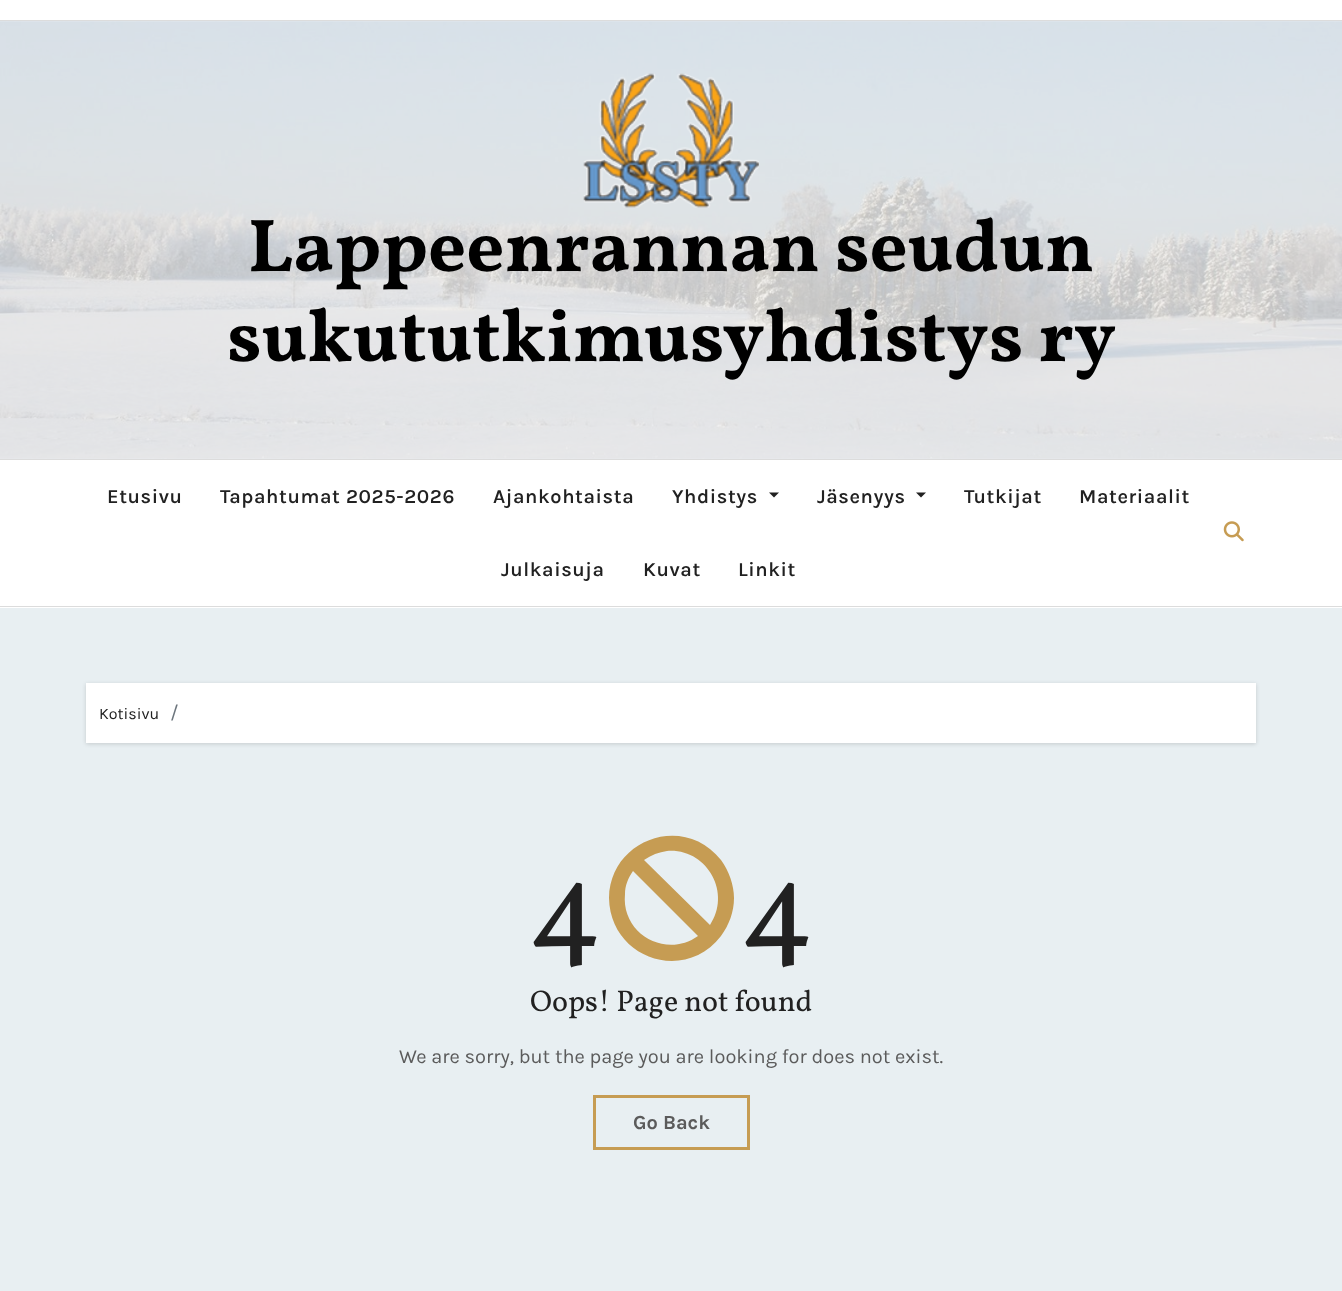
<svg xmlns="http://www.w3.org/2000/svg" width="1342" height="1291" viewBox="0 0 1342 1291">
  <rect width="100%" height="100%" fill="rgb(232,239,242)"/>
  <rect x="0" y="0" width="1342" height="20" fill="rgb(255,255,255)"/>
  <rect x="0" y="20" width="1342" height="1" fill="rgb(220,220,220)"/>
  <image x="0" y="21" width="1342" height="438" href="pic1.png"/>
  <image x="583" y="73" width="176" height="135" href="pic2.png"/>
  <g font-family="Vollkorn" font-size="75" font-weight="bold" fill="rgb(0,0,0)">
    <text x="248" y="271">Lappeenrannan seudun</text>
    <text x="227" y="361">sukututkimusyhdistys ry</text>
  </g>
  <rect x="0" y="460" width="1342" height="148" fill="rgb(255,255,255)"/>
  <rect x="0" y="459" width="1342" height="1" fill="rgb(220,220,220)"/>
  <rect x="0" y="606" width="1342" height="1" fill="rgb(220,220,220)"/>
  <g font-family="Karla" font-size="20" font-weight="600" letter-spacing="0.6" fill="rgb(33,33,33)">
    <text x="107" y="503">Etusivu</text>
    <text x="220" y="503">Tapahtumat 2025-2026</text>
    <text x="493" y="503">Ajankohtaista</text>
    <text x="672" y="503">Yhdistys</text>
  </g>
  <path d="M769 492.5H779L774 497.5Z" fill="rgb(33,33,33)"/>
  <text x="817" y="503" font-family="Karla" font-size="20" font-weight="600" letter-spacing="0.6" fill="rgb(33,33,33)">Jäsenyys</text>
  <path d="M916 492.5H926L921 497.5Z" fill="rgb(33,33,33)"/>
  <g font-family="Karla" font-size="20" font-weight="600" letter-spacing="0.6" fill="rgb(33,33,33)">
    <text x="964" y="503">Tutkijat</text>
    <text x="1079" y="503">Materiaalit</text>
    <text x="501" y="576">Julkaisuja</text>
    <text x="643" y="576">Kuvat</text>
    <text x="738" y="576">Linkit</text>
  </g>
  <image x="1223" y="521" width="21" height="21" href="pic3.png"/>
  <rect x="86" y="684" width="1170" height="60" fill="rgba(0,0,0,0.15)" filter="blur(2px)"/>
  <rect x="86" y="683" width="1170" height="60" fill="rgb(255,255,255)"/>
  <text x="99" y="719" font-family="Karla" font-size="16" fill="rgb(33,33,33)">Kotisivu</text>
  <text x="170" y="719" font-family="Karla" font-size="20" fill="rgb(108,117,125)">/</text>
  <text x="528" y="946" font-family="Vollkorn" font-size="125" fill="rgb(33,33,33)">4</text>
  <path d="M698 936L633 871C628 878 625 886 625 894C621 934 666 959 698 936ZM710 925C732 893 707 848 667 851C659 852 651 855 644 860ZM609 898C610 839 684 813 721 860C729 871 734 885 734 898C734 912 729 925 721 936C684 984 610 958 609 898Z" fill="rgb(198,156,83)"/>
  <text x="740" y="946" font-family="Vollkorn" font-size="125" fill="rgb(33,33,33)">4</text>
  <text x="530" y="1011" font-family="Vollkorn" font-size="30" fill="rgb(33,33,33)">Oops! Page not found</text>
  <text x="399" y="1063" font-family="Karla" font-size="20" fill="rgb(91,91,91)">We are sorry, but the page you are looking for does not exist.</text>
  <rect x="594.5" y="1096.5" width="154" height="52" fill="none" stroke="rgb(198,156,83)" stroke-width="3"/>
  <text x="633" y="1129" font-family="Karla" font-size="20" font-weight="bold" fill="rgb(91,91,91)">Go Back</text>
</svg>
